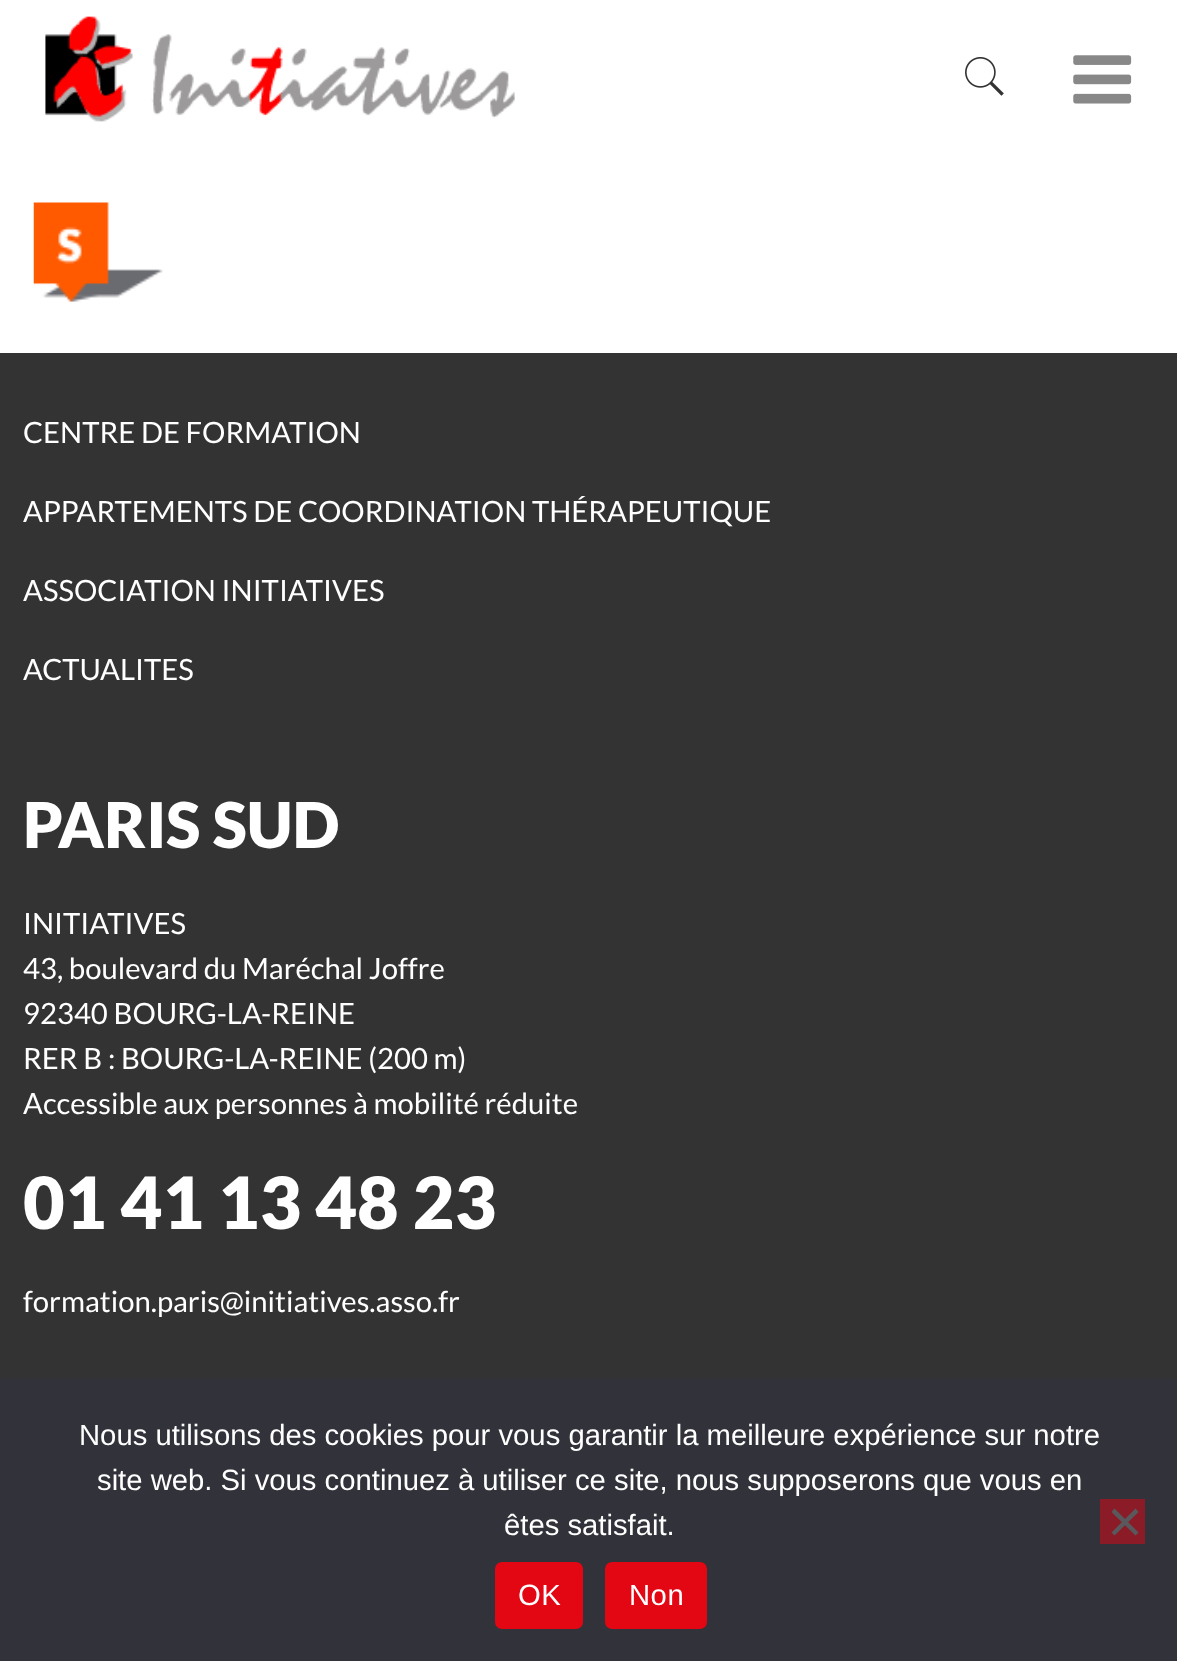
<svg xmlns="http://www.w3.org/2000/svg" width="1177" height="1661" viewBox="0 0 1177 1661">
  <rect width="100%" height="100%" fill="rgb(255,255,255)"/>
  <image x="45" y="16" width="470" height="106" href="pic1.png"/>
  <image x="1073" y="55" width="59" height="49" href="pic2.png"/>
  <image x="965" y="57" width="39" height="39" href="pic3.png"/>
  <image x="33" y="202" width="130" height="100" href="pic4.png"/>
  <rect x="0" y="353" width="1177" height="1026" fill="rgb(51,51,51)"/>
  <g font-family="Lato" font-size="29.25" fill="rgb(255,255,255)">
    <text x="23" y="443">CENTRE DE FORMATION</text>
    <text x="23" y="522">APPARTEMENTS DE COORDINATION THÉRAPEUTIQUE</text>
    <text x="23" y="601">ASSOCIATION INITIATIVES</text>
    <text x="23" y="680">ACTUALITES</text>
  </g>
  <text x="23" y="848" font-family="Lato" font-size="63" font-weight="900" fill="rgb(255,255,255)">PARIS SUD</text>
  <g font-family="Lato" font-size="29.25" fill="rgb(255,255,255)">
    <text>
      <tspan x="23" y="934">INITIATIVES</tspan>
      <tspan x="23" y="979">43, boulevard du Maréchal Joffre</tspan>
      <tspan x="23" y="1024">92340 BOURG-LA-REINE</tspan>
      <tspan x="23" y="1069">RER B : BOURG-LA-REINE (200 m)</tspan>
      <tspan x="23" y="1114">Accessible aux personnes à mobilité réduite</tspan>
    </text>
  </g>
  <text x="23" y="1229" font-family="Lato" font-size="72" font-weight="900" fill="rgb(255,255,255)">01 41 13 48 23</text>
  <text x="23" y="1312" font-family="Lato" font-size="29.25" fill="rgb(255,255,255)">formation.paris@initiatives.asso.fr</text>
  <rect x="0" y="1379" width="1177" height="282" fill="rgb(50,50,58)"/>
  <g font-family="Liberation Sans" font-size="29.25" fill="rgb(255,255,255)">
    <text x="79" y="1445">Nous utilisons des cookies pour vous garantir la meilleure expérience sur notre</text>
    <text x="97" y="1490">site web. Si vous continuez à utiliser ce site, nous supposerons que vous en</text>
    <text x="504" y="1535">êtes satisfait.</text>
  </g>
  <rect x="1100" y="1499" width="45" height="45" fill="rgb(139,28,39)"/>
  <path d="M1135.5 1508.5L1138.5 1512L1114.5 1535.5L1111.5 1532.5Z" fill="rgb(89,89,93)"/>
  <path d="M1111.5 1512L1114.5 1508.5L1138.5 1532.5L1135.5 1535.5Z" fill="rgb(89,89,93)"/>
  <rect x="495" y="1562" width="88" height="67" rx="7" fill="rgb(227,6,19)"/>
  <text x="518" y="1605" font-family="Liberation Sans" font-size="29.25" letter-spacing="0.5" fill="rgb(255,255,255)">OK</text>
  <rect x="605" y="1562" width="102" height="67" rx="7" fill="rgb(227,6,19)"/>
  <text x="629" y="1605" font-family="Liberation Sans" font-size="29.25" letter-spacing="0.5" fill="rgb(255,255,255)">Non</text>
</svg>
